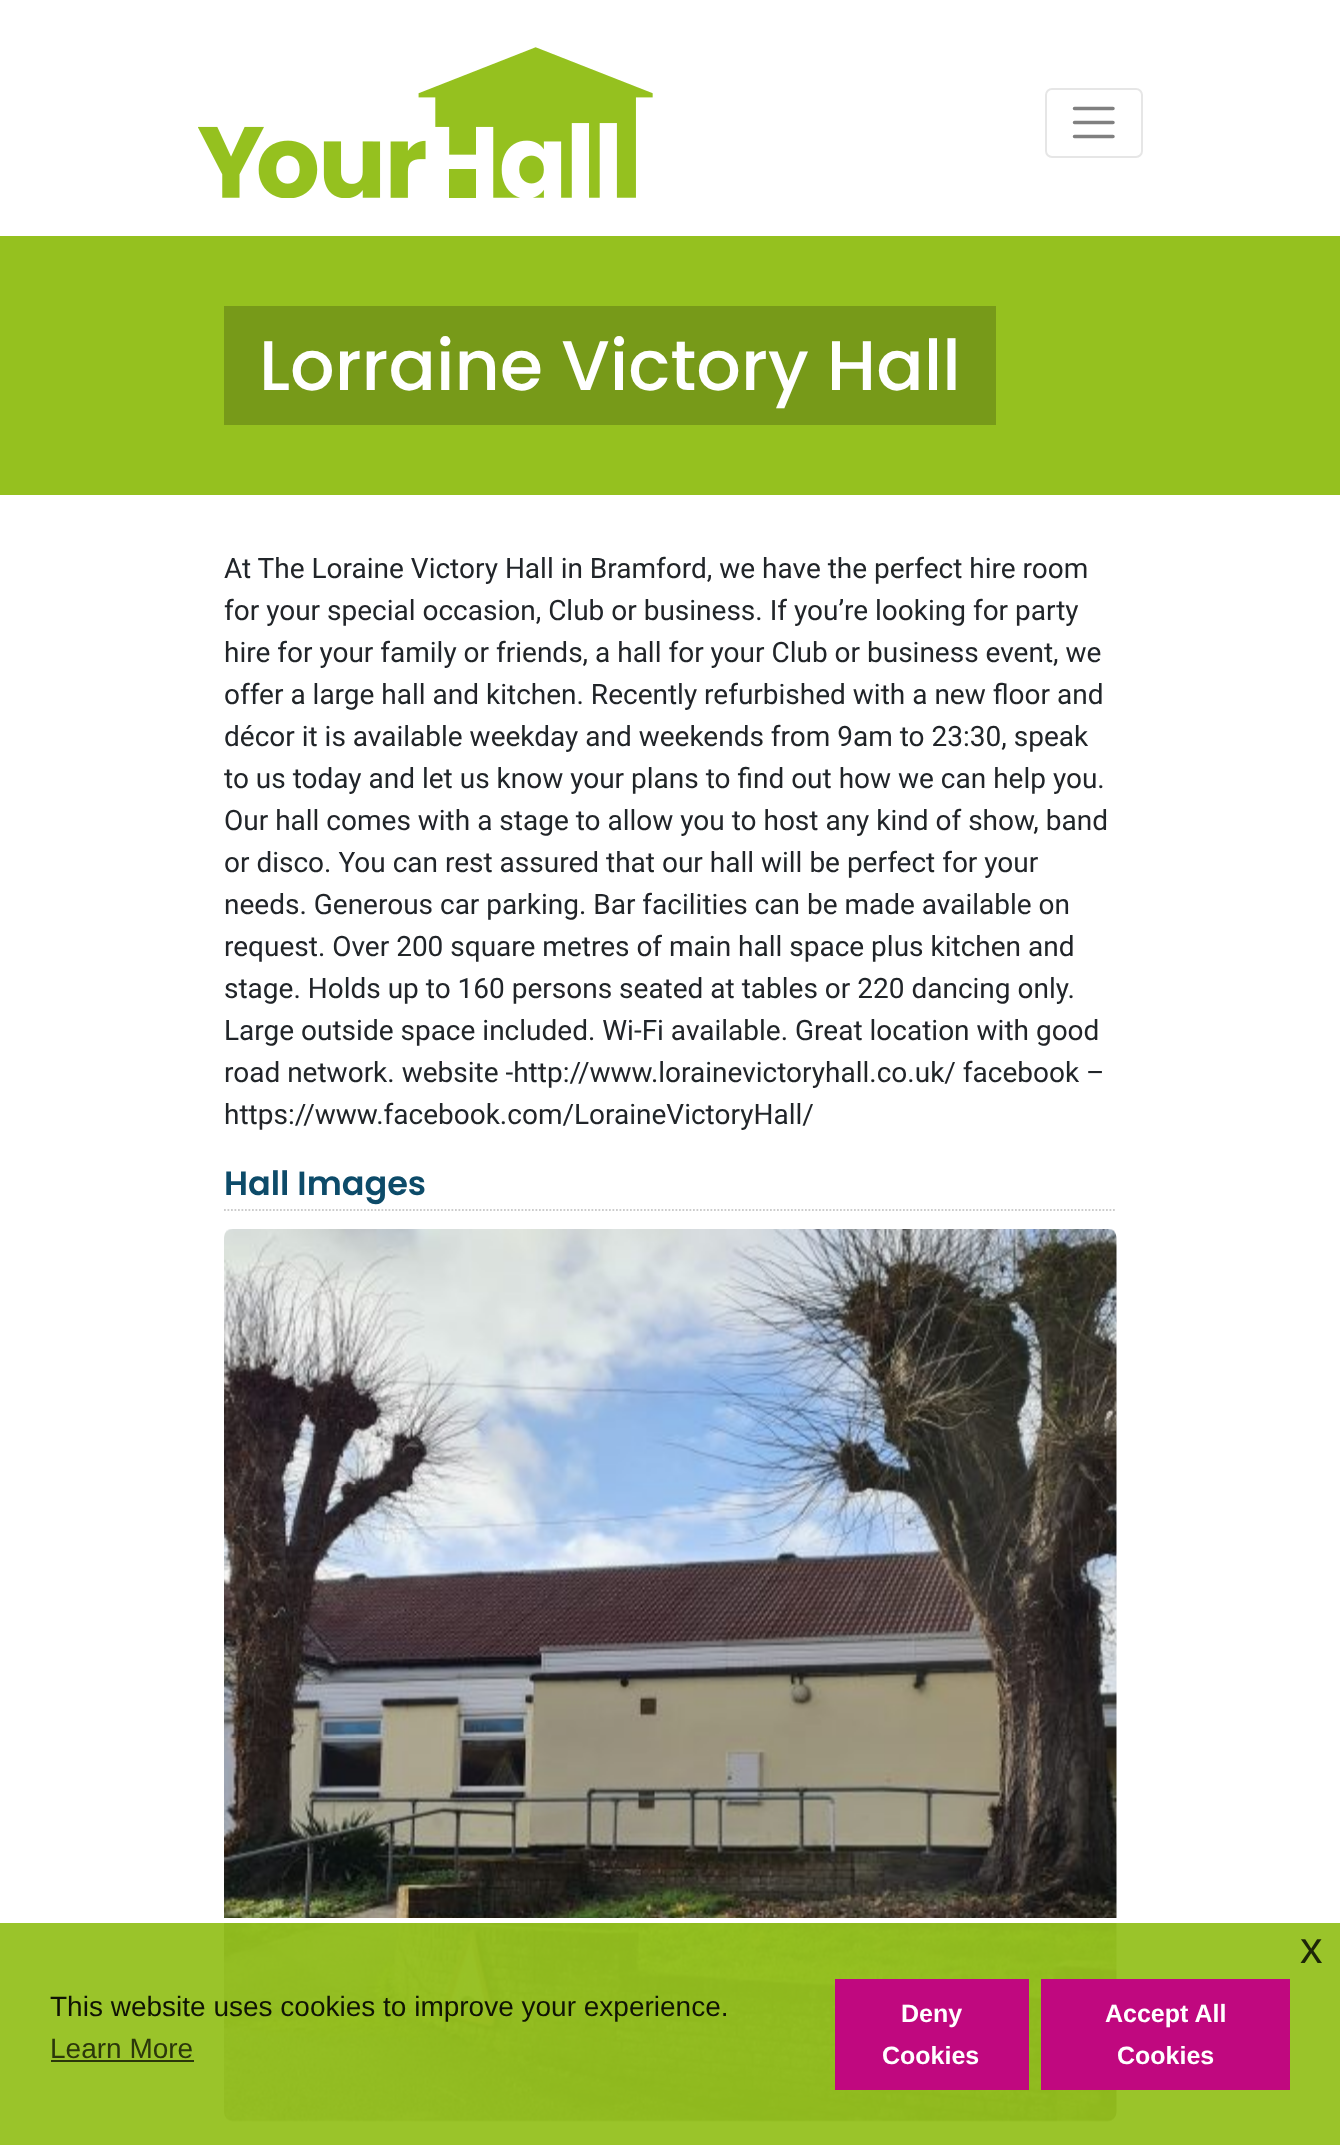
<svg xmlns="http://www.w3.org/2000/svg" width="1340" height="2145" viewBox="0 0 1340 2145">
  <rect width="100%" height="100%" fill="rgb(255,255,255)"/>
  <image x="198" y="47" width="455" height="151" href="pic1.png"/>
  <rect x="1046" y="89" width="96" height="68" rx="6" fill="none" stroke="rgb(230,230,230)" stroke-width="2"/>
  <path d="M1074.5 108.5H1113M1074.5 122.5H1113M1074.5 136.5H1113" fill="none" stroke="rgb(128,128,128)" stroke-width="3.5" stroke-linecap="round"/>
  <rect x="0" y="236" width="1340" height="259" fill="rgb(149,193,31)"/>
  <rect x="224" y="306" width="772" height="119" fill="rgb(119,154,25)"/>
  <text x="259" y="390" font-family="Poppins" font-size="70" font-weight="500" fill="rgb(255,255,255)">Lorraine Victory Hall</text>
  <g font-family="Roboto" font-size="28" fill="rgb(33,37,41)">
    <text>
      <tspan x="224" y="578">At The Loraine Victory Hall in Bramford, we have the perfect hire room</tspan>
      <tspan x="224" y="620">for your special occasion, Club or business. If you’re looking for party</tspan>
      <tspan x="224" y="662">hire for your family or friends, a hall for your Club or business event, we</tspan>
      <tspan x="224" y="704">offer a large hall and kitchen. Recently refurbished with a new floor and</tspan>
      <tspan x="224" y="746">décor it is available weekday and weekends from 9am to 23:30, speak</tspan>
      <tspan x="224" y="788">to us today and let us know your plans to find out how we can help you.</tspan>
      <tspan x="224" y="830">Our hall comes with a stage to allow you to host any kind of show, band</tspan>
      <tspan x="224" y="872">or disco. You can rest assured that our hall will be perfect for your</tspan>
      <tspan x="224" y="914">needs. Generous car parking. Bar facilities can be made available on</tspan>
      <tspan x="224" y="956">request. Over 200 square metres of main hall space plus kitchen and</tspan>
      <tspan x="224" y="998">stage. Holds up to 160 persons seated at tables or 220 dancing only.</tspan>
      <tspan x="224" y="1040">Large outside space included. Wi-Fi available. Great location with good</tspan>
      <tspan x="224" y="1082">road network. website -http://www.lorainevictoryhall.co.uk/ facebook –</tspan>
      <tspan x="224" y="1124">https://www.facebook.com/LoraineVictoryHall/</tspan>
    </text>
  </g>
  <path d="M224 1210H1116.5" fill="none" stroke="rgb(204,204,204)" stroke-width="1.8" stroke-dasharray="1.75 1.75"/>
  <text x="224" y="1195" font-family="Poppins" font-size="33.5" font-weight="600" fill="rgb(13,75,105)">Hall Images</text>
  <image x="224" y="1229" width="893" height="893" href="pic2.png"/>
  <rect x="0" y="1923" width="1340" height="222" fill="rgba(149,193,31,0.95)"/>
  <rect x="224" y="1918" width="893" height="5" fill="rgb(255,255,255)"/>
  <text x="1300" y="1963" font-family="Liberation Sans" font-size="45" fill="rgb(29,38,8)">x</text>
  <text x="50" y="2016" font-family="Liberation Sans" font-size="28" fill="rgb(15,19,4)">This website uses cookies to improve your experience.</text>
  <text x="50" y="2058" font-family="Liberation Sans" font-size="28" fill="rgb(43,55,11)">Learn More</text>
  <rect x="51" y="2060" width="143" height="2" fill="rgb(43,55,11)"/>
  <rect x="835" y="1979" width="194" height="111" fill="rgb(192,8,127)"/>
  <g font-family="Liberation Sans" font-size="25" font-weight="bold" fill="rgb(255,255,255)">
    <text x="901" y="2022">Deny</text>
    <text x="882" y="2064">Cookies</text>
  </g>
  <rect x="1041" y="1979" width="249" height="111" fill="rgb(192,8,127)"/>
  <g font-family="Liberation Sans" font-size="25" font-weight="bold" fill="rgb(255,255,255)">
    <text x="1105" y="2022">Accept All</text>
    <text x="1117" y="2064">Cookies</text>
  </g>
</svg>
